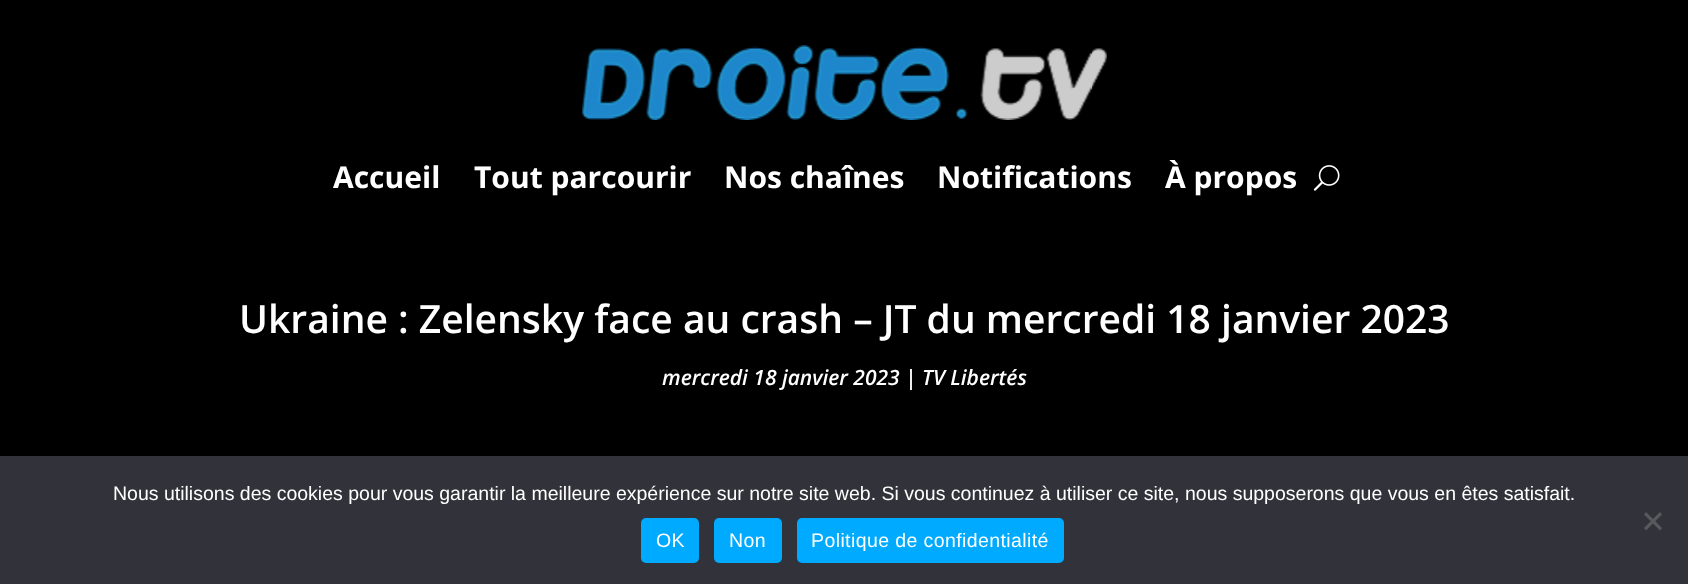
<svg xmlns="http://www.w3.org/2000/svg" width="1688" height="584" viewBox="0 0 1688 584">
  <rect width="100%" height="100%" fill="rgb(0,0,0)"/>
  <image x="582" y="45" width="525" height="75" href="pic1.png"/>
  <g font-family="Open Sans" font-size="30" font-weight="bold" fill="rgb(255,255,255)">
    <text x="333" y="188">Accueil</text>
    <text x="474" y="188">Tout parcourir</text>
    <text x="724" y="188">Nos chaînes</text>
    <text x="937" y="188">Notifications</text>
    <text x="1165" y="188">À propos</text>
  </g>
  <image x="1313" y="165" width="27" height="26" href="pic2.png"/>
  <text x="239" y="333" font-family="Open Sans" font-size="39" font-weight="600" fill="rgb(255,255,255)">Ukraine : Zelensky face au crash – JT du mercredi 18 janvier 2023</text>
  <text x="662" y="385" font-family="Open Sans" font-size="21" font-weight="600" font-style="italic" fill="rgb(255,255,255)">mercredi 18 janvier 2023 | TV Libertés</text>
  <rect x="0" y="456" width="1688" height="128" fill="rgb(50,50,58)"/>
  <text x="113" y="500" font-family="Liberation Sans" font-size="19.5" fill="rgb(255,255,255)">Nous utilisons des cookies pour vous garantir la meilleure expérience sur notre site web. Si vous continuez à utiliser ce site, nous supposerons que vous en êtes satisfait.</text>
  <path d="M1660 512L1662 514.5L1646 530.5L1644 528Z" fill="rgb(89,89,93)"/>
  <path d="M1644 514.5L1646 512L1662 528L1660 530.5Z" fill="rgb(89,89,93)"/>
  <rect x="641" y="518" width="58" height="45" rx="5" fill="rgb(0,170,255)"/>
  <text x="656" y="547" font-family="Liberation Sans" font-size="19.5" letter-spacing="0.4" fill="rgb(255,255,255)">OK</text>
  <rect x="714" y="518" width="68" height="45" rx="5" fill="rgb(0,170,255)"/>
  <text x="729" y="547" font-family="Liberation Sans" font-size="19.5" letter-spacing="0.4" fill="rgb(255,255,255)">Non</text>
  <rect x="797" y="518" width="267" height="45" rx="5" fill="rgb(0,170,255)"/>
  <text x="811" y="547" font-family="Liberation Sans" font-size="19.5" letter-spacing="0.4" fill="rgb(255,255,255)">Politique de confidentialité</text>
</svg>
